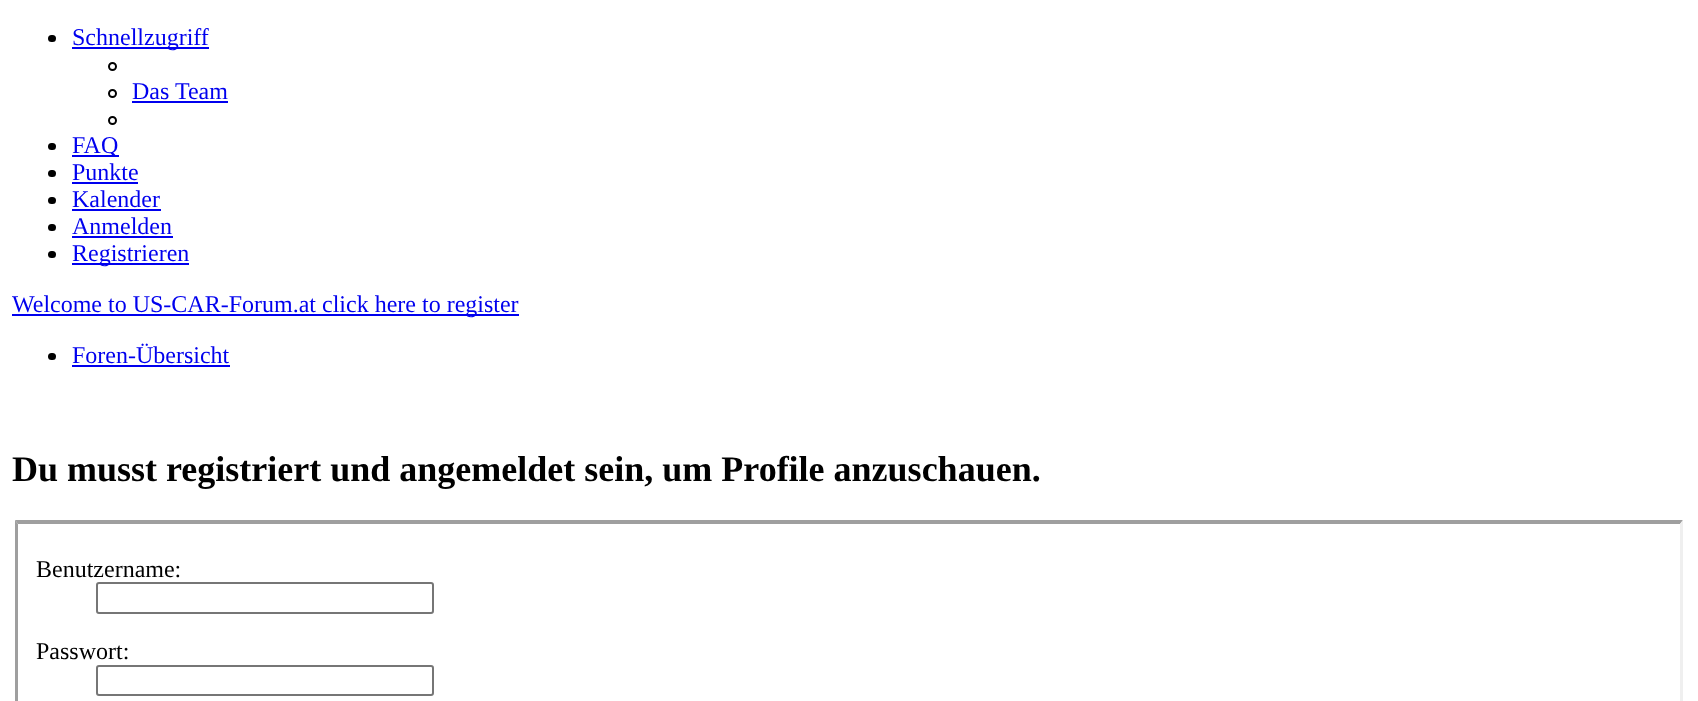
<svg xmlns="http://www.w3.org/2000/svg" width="1698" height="701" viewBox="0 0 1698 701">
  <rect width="100%" height="100%" fill="rgb(255,255,255)"/>
  <rect x="48" y="35" width="8" height="7" rx="3.5" fill="rgb(0,0,0)"/>
  <rect x="72" y="47" width="137" height="2" fill="rgb(0,0,238)"/>
  <text x="72" y="45" font-family="Liberation Serif" font-size="24" fill="rgb(0,0,238)">Schnellzugriff</text>
  <circle cx="112.5" cy="66.5" r="3.5" fill="none" stroke="rgb(0,0,0)" stroke-width="2"/>
  <circle cx="112.5" cy="93.5" r="3.5" fill="none" stroke="rgb(0,0,0)" stroke-width="2"/>
  <text x="132" y="99" font-family="Liberation Serif" font-size="24" fill="rgb(0,0,238)">Das Team</text>
  <rect x="132" y="101" width="96" height="2" fill="rgb(0,0,238)"/>
  <circle cx="112.5" cy="120.5" r="3.5" fill="none" stroke="rgb(0,0,0)" stroke-width="2"/>
  <rect x="48" y="143" width="8" height="7" rx="3.5" fill="rgb(0,0,0)"/>
  <rect x="72" y="155" width="47" height="2" fill="rgb(0,0,238)"/>
  <text x="72" y="153" font-family="Liberation Serif" font-size="24" fill="rgb(0,0,238)">FAQ</text>
  <rect x="48" y="170" width="8" height="7" rx="3.5" fill="rgb(0,0,0)"/>
  <text x="72" y="180" font-family="Liberation Serif" font-size="24" fill="rgb(0,0,238)">Punkte</text>
  <rect x="72" y="182" width="66" height="2" fill="rgb(0,0,238)"/>
  <rect x="48" y="197" width="8" height="7" rx="3.5" fill="rgb(0,0,0)"/>
  <text x="72" y="207" font-family="Liberation Serif" font-size="24" fill="rgb(0,0,238)">Kalender</text>
  <rect x="72" y="209" width="89" height="2" fill="rgb(0,0,238)"/>
  <rect x="48" y="224" width="8" height="7" rx="3.5" fill="rgb(0,0,0)"/>
  <text x="72" y="234" font-family="Liberation Serif" font-size="24" fill="rgb(0,0,238)">Anmelden</text>
  <rect x="72" y="236" width="101" height="2" fill="rgb(0,0,238)"/>
  <rect x="48" y="251" width="8" height="7" rx="3.5" fill="rgb(0,0,0)"/>
  <rect x="72" y="263" width="117" height="2" fill="rgb(0,0,238)"/>
  <text x="72" y="261" font-family="Liberation Serif" font-size="24" fill="rgb(0,0,238)">Registrieren</text>
  <rect x="12" y="314" width="507" height="2" fill="rgb(0,0,238)"/>
  <text x="12" y="312" font-family="Liberation Serif" font-size="24" fill="rgb(0,0,238)">Welcome to US-CAR-Forum.at click here to register</text>
  <rect x="48" y="353" width="8" height="7" rx="3.5" fill="rgb(0,0,0)"/>
  <text x="72" y="363" font-family="Liberation Serif" font-size="24" fill="rgb(0,0,238)">Foren-Übersicht</text>
  <rect x="72" y="365" width="158" height="2" fill="rgb(0,0,238)"/>
  <text x="12" y="481" font-family="Liberation Serif" font-size="36" font-weight="bold" fill="rgb(0,0,0)">Du musst registriert und angemeldet sein, um Profile anzuschauen.</text>
  <path d="M15 520H1683L1680 524H18Z" fill="rgb(159,159,159)"/>
  <path d="M1683 520V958L1680 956V524Z" fill="rgb(239,239,239)"/>
  <path d="M15 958V520L18 524V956Z" fill="rgb(159,159,159)"/>
  <text x="36" y="577" font-family="Liberation Serif" font-size="24" fill="rgb(0,0,0)">Benutzername:</text>
  <rect x="97" y="583" width="336" height="30" rx="2" fill="none" stroke="rgb(118,118,118)" stroke-width="2"/>
  <text x="36" y="659" font-family="Liberation Serif" font-size="24" fill="rgb(0,0,0)">Passwort:</text>
  <rect x="97" y="666" width="336" height="29" rx="2" fill="none" stroke="rgb(118,118,118)" stroke-width="2"/>
</svg>
